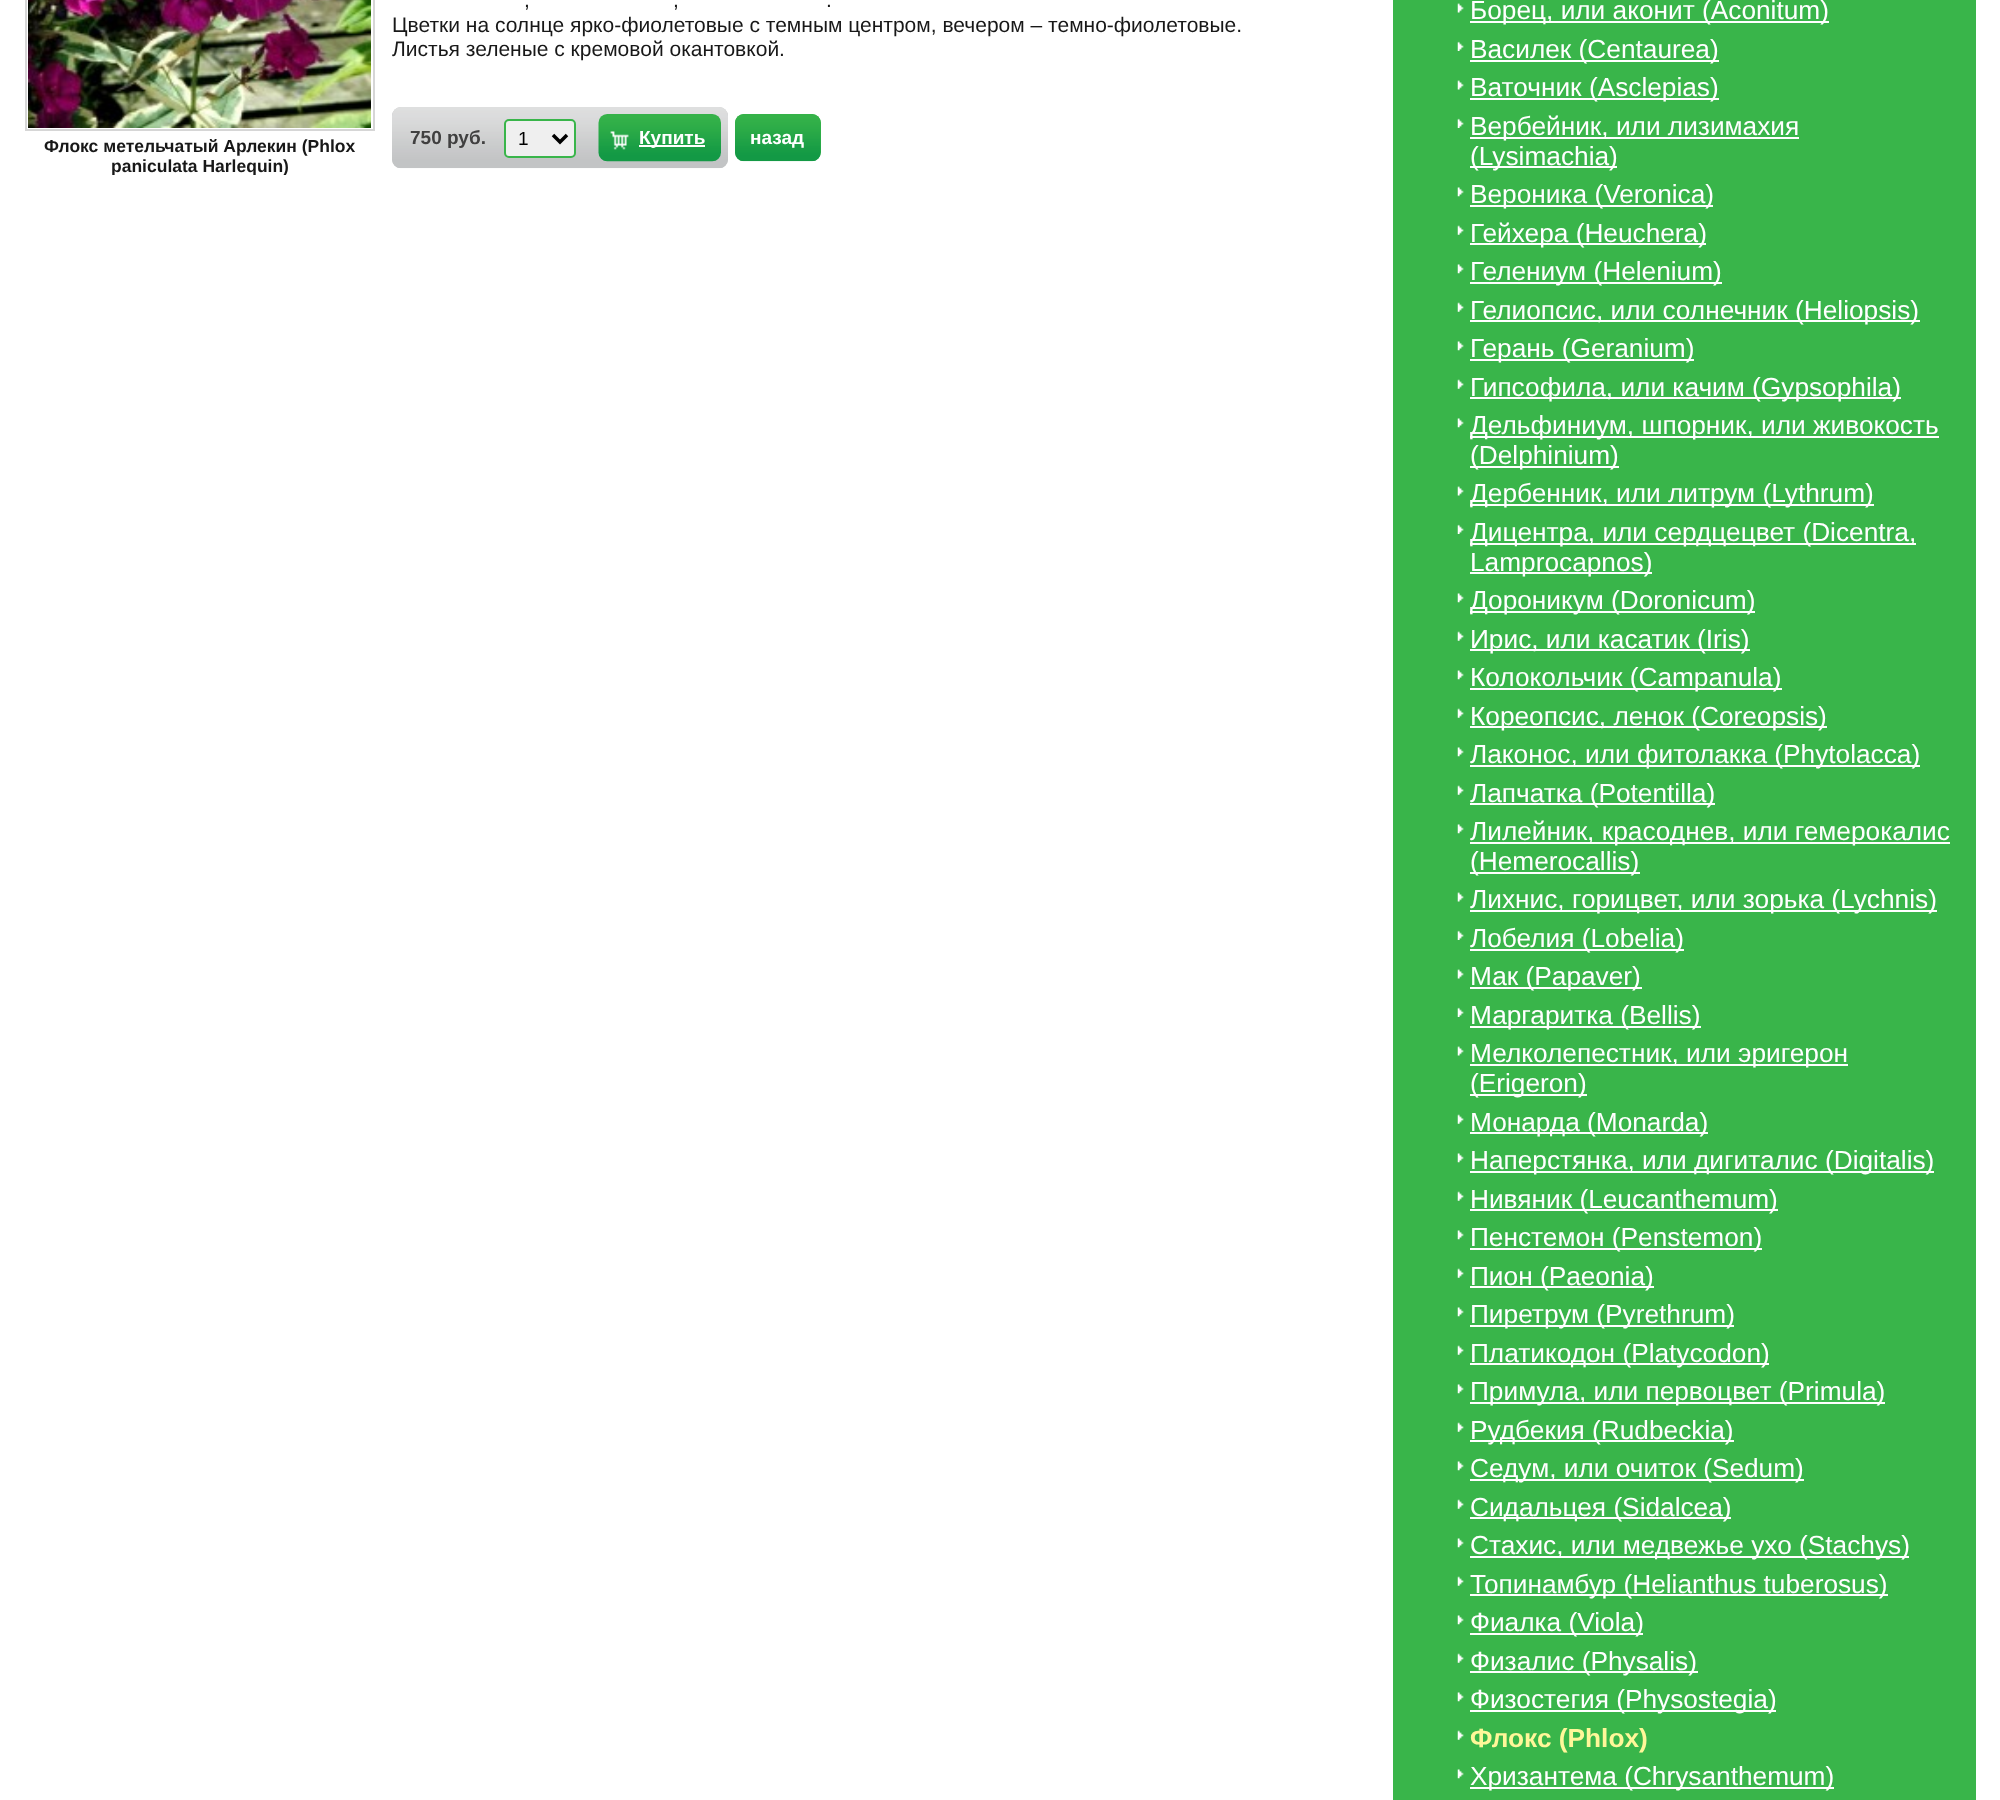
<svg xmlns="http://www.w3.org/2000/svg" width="2000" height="1800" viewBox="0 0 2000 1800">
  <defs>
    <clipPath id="clip1"><rect x="25" y="0" width="1951" height="175"/></clipPath>
  </defs>
  <rect width="100%" height="100%" fill="rgb(255,255,255)"/>
  <g font-family="Liberation Sans" font-size="21" fill="rgb(24,24,24)">
    <text x="524" y="7">,</text>
    <text x="673" y="7">,</text>
    <text x="826" y="7">.</text>
    <text>
      <tspan x="392" y="32">Цветки на солнце ярко-фиолетовые с темным центром, вечером – темно-фиолетовые.</tspan>
      <tspan x="392" y="56">Листья зеленые с кремовой окантовкой.</tspan>
    </text>
  </g>
  <rect x="26" y="-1" width="348" height="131" fill="none" stroke="rgb(214,214,214)" stroke-width="2"/>
  <image x="28" y="0" width="343" height="128" href="pic1.png"/>
  <text x="44" y="152" font-family="Liberation Sans" font-size="17.5" font-weight="bold" fill="rgb(24,24,24)">Флокс метельчатый Арлекин (Phlox</text>
  <g clip-path="url(#clip1)">
    <text x="111" y="172" font-family="Liberation Sans" font-size="17.5" font-weight="bold" fill="rgb(24,24,24)">paniculata Harlequin)</text>
  </g>
  <rect x="392" y="107" width="336" height="61" rx="9" fill="rgb(199,199,200)"/>
  <image x="392" y="107" width="336" height="62" href="pic2.png"/>
  <text x="410" y="144" font-family="Liberation Sans" font-size="19" font-weight="bold" fill="rgb(64,64,64)">750 руб.</text>
  <rect x="505" y="120" width="70" height="37" rx="4" fill="rgb(239,239,239)" stroke="rgb(57,181,74)" stroke-width="2"/>
  <path d="M553 135L560 142L567 135" fill="none" stroke="rgb(0,0,0)" stroke-width="3.5"/>
  <text x="518" y="145" font-family="Liberation Sans" font-size="19" fill="rgb(0,0,0)">1</text>
  <rect x="599" y="114" width="122" height="47" rx="9" fill="rgb(199,199,200)"/>
  <image x="598" y="114" width="123" height="48" href="pic3.png"/>
  <rect x="639" y="145" width="66" height="2" fill="rgb(255,255,255)"/>
  <text x="639" y="144" font-family="Liberation Sans" font-size="19" font-weight="bold" fill="rgb(255,255,255)">Купить</text>
  <rect x="735" y="114" width="86" height="47" rx="9" fill="rgb(57,181,74)"/>
  <image x="735" y="114" width="86" height="48" href="pic4.png"/>
  <text x="750" y="144" font-family="Liberation Sans" font-size="19" font-weight="bold" fill="rgb(255,255,255)">назад</text>
  <rect x="1393" y="0" width="583" height="1800" fill="rgb(57,181,74)"/>
  <image x="1457" y="3" width="7" height="10" href="pic5.png"/>
  <rect x="1470" y="21" width="359" height="2" fill="rgb(255,255,255)"/>
  <text x="1470" y="19" font-family="Liberation Sans" font-size="26.25" fill="rgb(255,255,255)">Борец, или аконит (Aconitum)</text>
  <image x="1457" y="41" width="7" height="10" href="pic6.png"/>
  <rect x="1470" y="60" width="249" height="2" fill="rgb(255,255,255)"/>
  <text x="1470" y="58" font-family="Liberation Sans" font-size="26.25" fill="rgb(255,255,255)">Василек (Centaurea)</text>
  <image x="1457" y="80" width="7" height="10" href="pic5.png"/>
  <rect x="1470" y="98" width="249" height="2" fill="rgb(255,255,255)"/>
  <text x="1470" y="96" font-family="Liberation Sans" font-size="26.25" fill="rgb(255,255,255)">Ваточник (Asclepias)</text>
  <image x="1457" y="118" width="7" height="10" href="pic6.png"/>
  <rect x="1470" y="137" width="329" height="2" fill="rgb(255,255,255)"/>
  <text x="1470" y="135" font-family="Liberation Sans" font-size="26.25" fill="rgb(255,255,255)">Вербейник, или лизимахия</text>
  <rect x="1470" y="166" width="147" height="2" fill="rgb(255,255,255)"/>
  <text x="1470" y="165" font-family="Liberation Sans" font-size="26.25" fill="rgb(255,255,255)">(Lysimachia)</text>
  <image x="1457" y="187" width="7" height="10" href="pic7.png"/>
  <rect x="1470" y="205" width="243" height="2" fill="rgb(255,255,255)"/>
  <text x="1470" y="203" font-family="Liberation Sans" font-size="26.25" fill="rgb(255,255,255)">Вероника (Veronica)</text>
  <image x="1457" y="225" width="7" height="10" href="pic8.png"/>
  <rect x="1470" y="243" width="236" height="2" fill="rgb(255,255,255)"/>
  <text x="1470" y="242" font-family="Liberation Sans" font-size="26.25" fill="rgb(255,255,255)">Гейхера (Heuchera)</text>
  <image x="1457" y="264" width="7" height="10" href="pic7.png"/>
  <rect x="1470" y="282" width="252" height="2" fill="rgb(255,255,255)"/>
  <text x="1470" y="280" font-family="Liberation Sans" font-size="26.25" fill="rgb(255,255,255)">Гелениум (Helenium)</text>
  <image x="1457" y="302" width="7" height="10" href="pic8.png"/>
  <rect x="1470" y="320" width="450" height="2" fill="rgb(255,255,255)"/>
  <text x="1470" y="319" font-family="Liberation Sans" font-size="26.25" fill="rgb(255,255,255)">Гелиопсис, или солнечник (Heliopsis)</text>
  <image x="1457" y="341" width="7" height="10" href="pic7.png"/>
  <rect x="1470" y="359" width="224" height="2" fill="rgb(255,255,255)"/>
  <text x="1470" y="357" font-family="Liberation Sans" font-size="26.25" fill="rgb(255,255,255)">Герань (Geranium)</text>
  <image x="1457" y="379" width="7" height="10" href="pic8.png"/>
  <rect x="1470" y="397" width="431" height="2" fill="rgb(255,255,255)"/>
  <text x="1470" y="396" font-family="Liberation Sans" font-size="26.25" fill="rgb(255,255,255)">Гипсофила, или качим (Gypsophila)</text>
  <image x="1457" y="418" width="7" height="10" href="pic7.png"/>
  <rect x="1470" y="436" width="469" height="2" fill="rgb(255,255,255)"/>
  <text x="1470" y="434" font-family="Liberation Sans" font-size="26.25" fill="rgb(255,255,255)">Дельфиниум, шпорник, или живокость</text>
  <rect x="1470" y="466" width="149" height="2" fill="rgb(255,255,255)"/>
  <text x="1470" y="464" font-family="Liberation Sans" font-size="26.25" fill="rgb(255,255,255)">(Delphinium)</text>
  <image x="1457" y="486" width="7" height="10" href="pic5.png"/>
  <rect x="1470" y="504" width="404" height="2" fill="rgb(255,255,255)"/>
  <text x="1470" y="502" font-family="Liberation Sans" font-size="26.25" fill="rgb(255,255,255)">Дербенник, или литрум (Lythrum)</text>
  <image x="1457" y="524" width="7" height="10" href="pic6.png"/>
  <rect x="1470" y="543" width="446" height="2" fill="rgb(255,255,255)"/>
  <text x="1470" y="541" font-family="Liberation Sans" font-size="26.25" fill="rgb(255,255,255)">Дицeнтра, или сердцецвет (Dicentra,</text>
  <rect x="1470" y="572" width="182" height="2" fill="rgb(255,255,255)"/>
  <text x="1470" y="571" font-family="Liberation Sans" font-size="26.25" fill="rgb(255,255,255)">Lamprocapnos)</text>
  <image x="1457" y="593" width="7" height="10" href="pic7.png"/>
  <rect x="1470" y="611" width="285" height="2" fill="rgb(255,255,255)"/>
  <text x="1470" y="609" font-family="Liberation Sans" font-size="26.25" fill="rgb(255,255,255)">Дороникум (Doronicum)</text>
  <image x="1457" y="631" width="7" height="10" href="pic8.png"/>
  <rect x="1470" y="649" width="280" height="2" fill="rgb(255,255,255)"/>
  <text x="1470" y="648" font-family="Liberation Sans" font-size="26.25" fill="rgb(255,255,255)">Ирис, или касатик (Iris)</text>
  <image x="1457" y="670" width="7" height="10" href="pic9.png"/>
  <rect x="1470" y="688" width="312" height="2" fill="rgb(255,255,255)"/>
  <text x="1470" y="686" font-family="Liberation Sans" font-size="26.25" fill="rgb(255,255,255)">Колокольчик (Campanula)</text>
  <image x="1457" y="708" width="7" height="10" href="pic8.png"/>
  <rect x="1470" y="726" width="357" height="2" fill="rgb(255,255,255)"/>
  <text x="1470" y="725" font-family="Liberation Sans" font-size="26.25" fill="rgb(255,255,255)">Кореопсис, ленок (Coreopsis)</text>
  <image x="1457" y="747" width="7" height="10" href="pic7.png"/>
  <rect x="1470" y="765" width="450" height="2" fill="rgb(255,255,255)"/>
  <text x="1470" y="763" font-family="Liberation Sans" font-size="26.25" fill="rgb(255,255,255)">Лаконос, или фитолакка (Phytolacca)</text>
  <image x="1457" y="785" width="7" height="10" href="pic8.png"/>
  <rect x="1470" y="803" width="245" height="2" fill="rgb(255,255,255)"/>
  <text x="1470" y="802" font-family="Liberation Sans" font-size="26.25" fill="rgb(255,255,255)">Лапчатка (Potentilla)</text>
  <image x="1457" y="824" width="7" height="10" href="pic7.png"/>
  <rect x="1470" y="842" width="480" height="2" fill="rgb(255,255,255)"/>
  <text x="1470" y="840" font-family="Liberation Sans" font-size="26.25" fill="rgb(255,255,255)">Лилейник, красоднев, или гемерокалис</text>
  <rect x="1470" y="872" width="170" height="2" fill="rgb(255,255,255)"/>
  <text x="1470" y="870" font-family="Liberation Sans" font-size="26.25" fill="rgb(255,255,255)">(Hemerocallis)</text>
  <image x="1457" y="892" width="7" height="10" href="pic5.png"/>
  <rect x="1470" y="910" width="467" height="2" fill="rgb(255,255,255)"/>
  <text x="1470" y="908" font-family="Liberation Sans" font-size="26.25" fill="rgb(255,255,255)">Лихнис, горицвет, или зорька (Lychnis)</text>
  <image x="1457" y="930" width="7" height="10" href="pic6.png"/>
  <rect x="1470" y="949" width="214" height="2" fill="rgb(255,255,255)"/>
  <text x="1470" y="947" font-family="Liberation Sans" font-size="26.25" fill="rgb(255,255,255)">Лобелия (Lobelia)</text>
  <image x="1457" y="969" width="7" height="10" href="pic5.png"/>
  <rect x="1470" y="987" width="172" height="2" fill="rgb(255,255,255)"/>
  <text x="1470" y="985" font-family="Liberation Sans" font-size="26.25" fill="rgb(255,255,255)">Мак (Papaver)</text>
  <image x="1457" y="1007" width="7" height="10" href="pic6.png"/>
  <rect x="1470" y="1026" width="231" height="2" fill="rgb(255,255,255)"/>
  <text x="1470" y="1024" font-family="Liberation Sans" font-size="26.25" fill="rgb(255,255,255)">Маргаритка (Bellis)</text>
  <image x="1457" y="1046" width="7" height="10" href="pic5.png"/>
  <rect x="1470" y="1064" width="378" height="2" fill="rgb(255,255,255)"/>
  <text x="1470" y="1062" font-family="Liberation Sans" font-size="26.25" fill="rgb(255,255,255)">Мелколепестник, или эригерон</text>
  <rect x="1470" y="1094" width="117" height="2" fill="rgb(255,255,255)"/>
  <text x="1470" y="1092" font-family="Liberation Sans" font-size="26.25" fill="rgb(255,255,255)">(Erigeron)</text>
  <image x="1457" y="1114" width="7" height="10" href="pic8.png"/>
  <rect x="1470" y="1132" width="238" height="2" fill="rgb(255,255,255)"/>
  <text x="1470" y="1131" font-family="Liberation Sans" font-size="26.25" fill="rgb(255,255,255)">Монарда (Monarda)</text>
  <image x="1457" y="1153" width="7" height="10" href="pic7.png"/>
  <rect x="1470" y="1171" width="464" height="2" fill="rgb(255,255,255)"/>
  <text x="1470" y="1169" font-family="Liberation Sans" font-size="26.25" fill="rgb(255,255,255)">Наперстянка, или дигиталис (Digitalis)</text>
  <image x="1457" y="1191" width="7" height="10" href="pic8.png"/>
  <rect x="1470" y="1209" width="308" height="2" fill="rgb(255,255,255)"/>
  <text x="1470" y="1208" font-family="Liberation Sans" font-size="26.25" fill="rgb(255,255,255)">Нивяник (Leucanthemum)</text>
  <image x="1457" y="1230" width="7" height="10" href="pic7.png"/>
  <rect x="1470" y="1248" width="292" height="2" fill="rgb(255,255,255)"/>
  <text x="1470" y="1246" font-family="Liberation Sans" font-size="26.25" fill="rgb(255,255,255)">Пенстемон (Penstemon)</text>
  <image x="1457" y="1268" width="7" height="10" href="pic8.png"/>
  <rect x="1470" y="1286" width="184" height="2" fill="rgb(255,255,255)"/>
  <text x="1470" y="1285" font-family="Liberation Sans" font-size="26.25" fill="rgb(255,255,255)">Пион (Paeonia)</text>
  <image x="1457" y="1307" width="7" height="10" href="pic7.png"/>
  <rect x="1470" y="1325" width="264" height="2" fill="rgb(255,255,255)"/>
  <text x="1470" y="1323" font-family="Liberation Sans" font-size="26.25" fill="rgb(255,255,255)">Пиретрум (Pyrethrum)</text>
  <image x="1457" y="1345" width="7" height="10" href="pic8.png"/>
  <rect x="1470" y="1363" width="299" height="2" fill="rgb(255,255,255)"/>
  <text x="1470" y="1362" font-family="Liberation Sans" font-size="26.25" fill="rgb(255,255,255)">Платикодон (Platycodon)</text>
  <image x="1457" y="1384" width="7" height="10" href="pic7.png"/>
  <rect x="1470" y="1402" width="415" height="2" fill="rgb(255,255,255)"/>
  <text x="1470" y="1400" font-family="Liberation Sans" font-size="26.25" fill="rgb(255,255,255)">Примула, или первоцвет (Primula)</text>
  <image x="1457" y="1422" width="7" height="10" href="pic8.png"/>
  <rect x="1470" y="1440" width="264" height="2" fill="rgb(255,255,255)"/>
  <text x="1470" y="1439" font-family="Liberation Sans" font-size="26.25" fill="rgb(255,255,255)">Рудбекия (Rudbeckia)</text>
  <image x="1457" y="1461" width="7" height="10" href="pic7.png"/>
  <rect x="1470" y="1479" width="334" height="2" fill="rgb(255,255,255)"/>
  <text x="1470" y="1477" font-family="Liberation Sans" font-size="26.25" fill="rgb(255,255,255)">Седум, или очиток (Sedum)</text>
  <image x="1457" y="1499" width="7" height="10" href="pic8.png"/>
  <rect x="1470" y="1517" width="261" height="2" fill="rgb(255,255,255)"/>
  <text x="1470" y="1516" font-family="Liberation Sans" font-size="26.25" fill="rgb(255,255,255)">Сидальцея (Sidalcea)</text>
  <image x="1457" y="1538" width="7" height="10" href="pic7.png"/>
  <rect x="1470" y="1556" width="439" height="2" fill="rgb(255,255,255)"/>
  <text x="1470" y="1554" font-family="Liberation Sans" font-size="26.25" fill="rgb(255,255,255)">Стахис, или медвежье ухо (Stachys)</text>
  <image x="1457" y="1576" width="7" height="10" href="pic8.png"/>
  <rect x="1470" y="1594" width="418" height="2" fill="rgb(255,255,255)"/>
  <text x="1470" y="1593" font-family="Liberation Sans" font-size="26.25" fill="rgb(255,255,255)">Топинамбур (Helianthus tuberosus)</text>
  <image x="1457" y="1615" width="7" height="10" href="pic7.png"/>
  <rect x="1470" y="1633" width="173" height="2" fill="rgb(255,255,255)"/>
  <text x="1470" y="1631" font-family="Liberation Sans" font-size="26.25" fill="rgb(255,255,255)">Фиалка (Viola)</text>
  <image x="1457" y="1653" width="7" height="10" href="pic8.png"/>
  <rect x="1470" y="1671" width="228" height="2" fill="rgb(255,255,255)"/>
  <text x="1470" y="1670" font-family="Liberation Sans" font-size="26.25" fill="rgb(255,255,255)">Физалис (Physalis)</text>
  <image x="1457" y="1692" width="7" height="10" href="pic7.png"/>
  <rect x="1470" y="1710" width="306" height="2" fill="rgb(255,255,255)"/>
  <text x="1470" y="1708" font-family="Liberation Sans" font-size="26.25" fill="rgb(255,255,255)">Физостегия (Physostegia)</text>
  <image x="1457" y="1730" width="7" height="10" href="pic8.png"/>
  <text x="1470" y="1747" font-family="Liberation Sans" font-size="26.25" font-weight="bold" fill="rgb(255,247,153)">Флокс (Phlox)</text>
  <image x="1457" y="1769" width="7" height="10" href="pic7.png"/>
  <rect x="1470" y="1787" width="364" height="2" fill="rgb(255,255,255)"/>
  <text x="1470" y="1785" font-family="Liberation Sans" font-size="26.25" fill="rgb(255,255,255)">Хризантема (Chrysanthemum)</text>
</svg>
